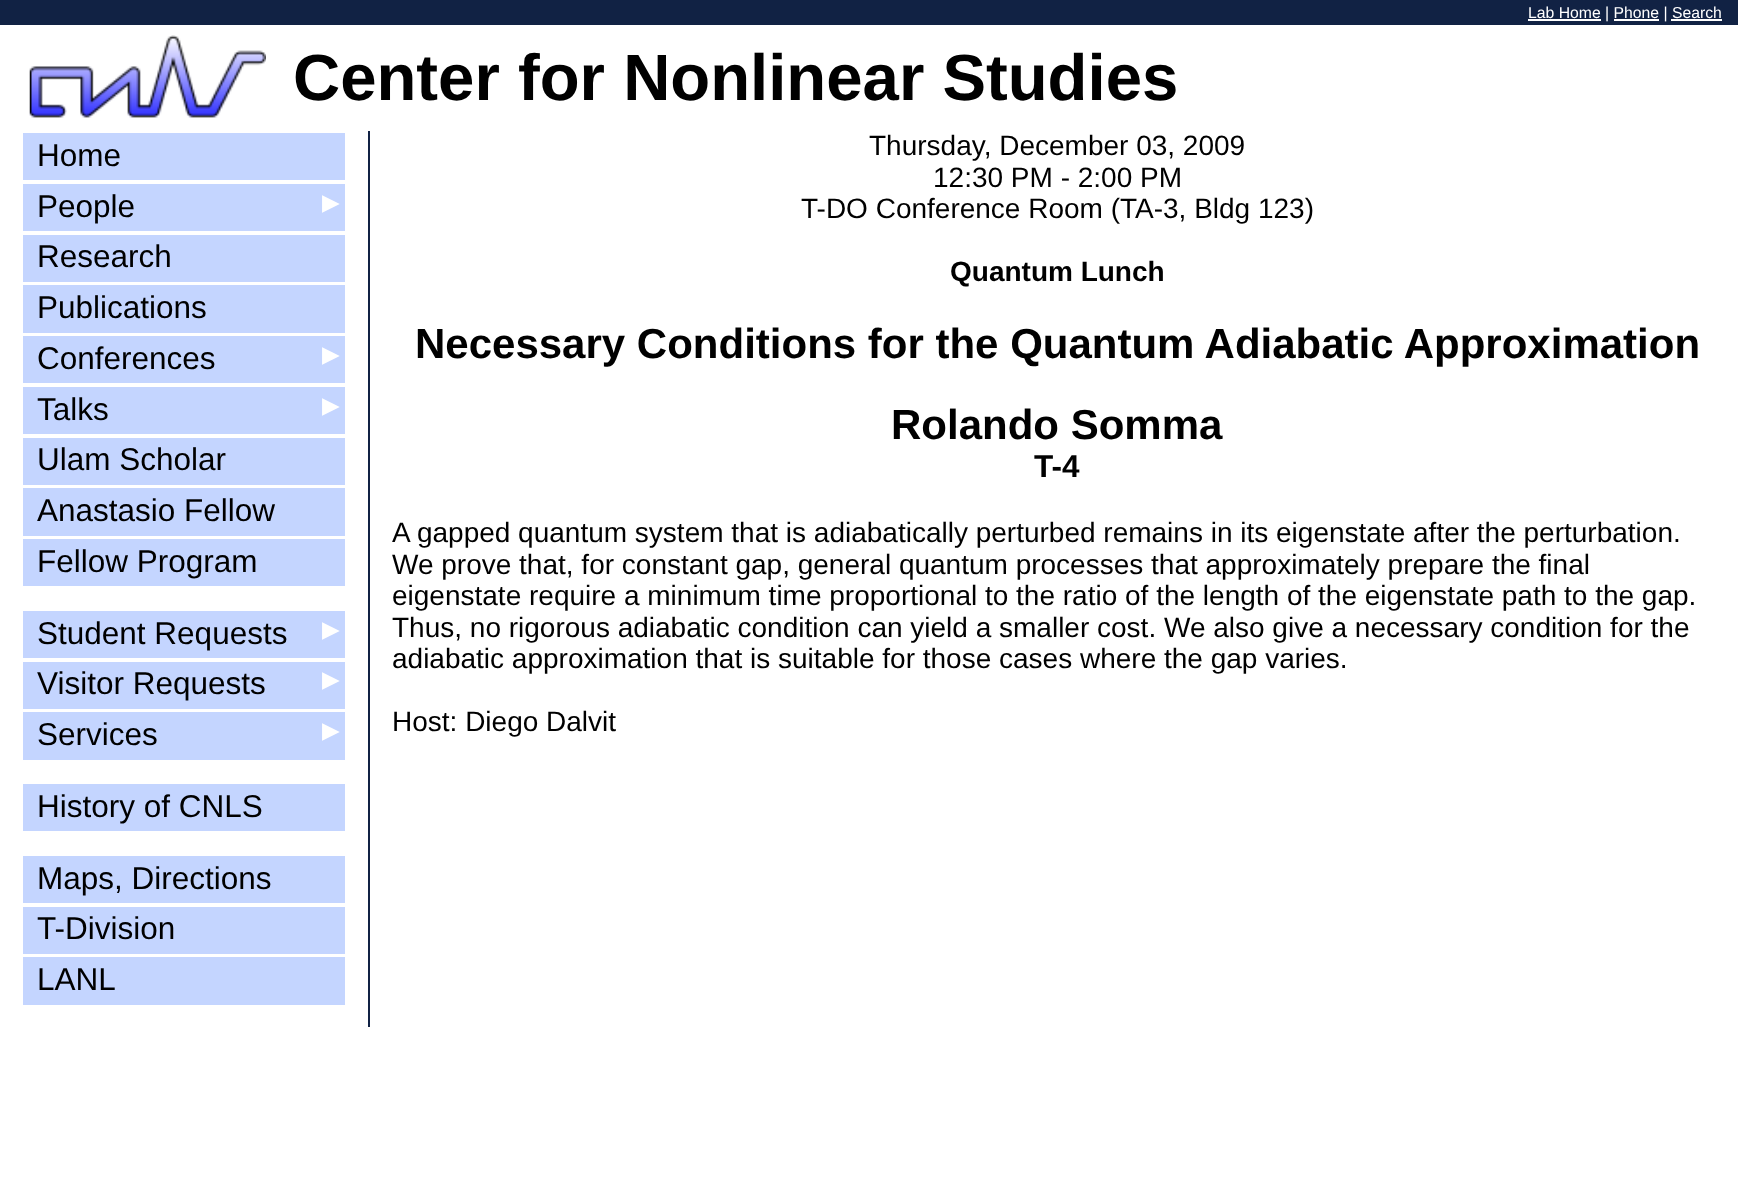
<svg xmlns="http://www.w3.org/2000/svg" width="1738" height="1199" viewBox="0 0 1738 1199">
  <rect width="100%" height="100%" fill="rgb(255,255,255)"/>
  <rect x="0" y="0" width="1738" height="25" fill="rgb(17,34,68)"/>
  <rect x="1528" y="19" width="73" height="2" fill="rgb(255,255,255)"/>
  <text x="1528" y="18" font-family="Liberation Sans" font-size="15.75" fill="rgb(255,255,255)">Lab Home | Phone | Search</text>
  <rect x="1614" y="19" width="45" height="2" fill="rgb(255,255,255)"/>
  <rect x="1671" y="19" width="51" height="2" fill="rgb(255,255,255)"/>
  <image x="29" y="35" width="237" height="83" href="pic1.png"/>
  <text x="293" y="100" font-family="Liberation Sans" font-size="65.3" font-weight="bold" fill="rgb(0,0,0)">Center for Nonlinear Studies</text>
  <rect x="23" y="133" width="322" height="47" fill="rgb(196,213,255)"/>
  <text x="37" y="166" font-family="Liberation Sans" font-size="31.5" fill="rgb(0,0,0)">Home</text>
  <rect x="23" y="184" width="322" height="47" fill="rgb(196,213,255)"/>
  <text x="37" y="217" font-family="Liberation Sans" font-size="31.5" fill="rgb(0,0,0)">People</text>
  <text x="322" y="210" font-family="DejaVu Sans" font-size="23" fill="rgb(255,255,255)">▶</text>
  <rect x="23" y="235" width="322" height="47" fill="rgb(196,213,255)"/>
  <text x="37" y="267" font-family="Liberation Sans" font-size="31.5" fill="rgb(0,0,0)">Research</text>
  <rect x="23" y="285" width="322" height="48" fill="rgb(196,213,255)"/>
  <text x="37" y="318" font-family="Liberation Sans" font-size="31.5" fill="rgb(0,0,0)">Publications</text>
  <rect x="23" y="336" width="322" height="47" fill="rgb(196,213,255)"/>
  <text x="37" y="369" font-family="Liberation Sans" font-size="31.5" fill="rgb(0,0,0)">Conferences</text>
  <text x="322" y="362" font-family="DejaVu Sans" font-size="23" fill="rgb(255,255,255)">▶</text>
  <rect x="23" y="387" width="322" height="47" fill="rgb(196,213,255)"/>
  <text x="37" y="420" font-family="Liberation Sans" font-size="31.5" fill="rgb(0,0,0)">Talks</text>
  <text x="322" y="413" font-family="DejaVu Sans" font-size="23" fill="rgb(255,255,255)">▶</text>
  <rect x="23" y="438" width="322" height="47" fill="rgb(196,213,255)"/>
  <text x="37" y="470" font-family="Liberation Sans" font-size="31.5" fill="rgb(0,0,0)">Ulam Scholar</text>
  <rect x="23" y="488" width="322" height="48" fill="rgb(196,213,255)"/>
  <text x="37" y="521" font-family="Liberation Sans" font-size="31.5" fill="rgb(0,0,0)">Anastasio Fellow</text>
  <rect x="23" y="539" width="322" height="47" fill="rgb(196,213,255)"/>
  <text x="37" y="572" font-family="Liberation Sans" font-size="31.5" fill="rgb(0,0,0)">Fellow Program</text>
  <rect x="23" y="611" width="322" height="47" fill="rgb(196,213,255)"/>
  <text x="37" y="644" font-family="Liberation Sans" font-size="31.5" fill="rgb(0,0,0)">Student Requests</text>
  <text x="322" y="637" font-family="DejaVu Sans" font-size="23" fill="rgb(255,255,255)">▶</text>
  <rect x="23" y="662" width="322" height="47" fill="rgb(196,213,255)"/>
  <text x="37" y="694" font-family="Liberation Sans" font-size="31.5" fill="rgb(0,0,0)">Visitor Requests</text>
  <text x="322" y="687" font-family="DejaVu Sans" font-size="23" fill="rgb(255,255,255)">▶</text>
  <rect x="23" y="712" width="322" height="48" fill="rgb(196,213,255)"/>
  <text x="37" y="745" font-family="Liberation Sans" font-size="31.5" fill="rgb(0,0,0)">Services</text>
  <text x="322" y="738" font-family="DejaVu Sans" font-size="23" fill="rgb(255,255,255)">▶</text>
  <rect x="23" y="784" width="322" height="47" fill="rgb(196,213,255)"/>
  <text x="37" y="817" font-family="Liberation Sans" font-size="31.5" fill="rgb(0,0,0)">History of CNLS</text>
  <rect x="23" y="856" width="322" height="47" fill="rgb(196,213,255)"/>
  <text x="37" y="889" font-family="Liberation Sans" font-size="31.5" fill="rgb(0,0,0)">Maps, Directions</text>
  <rect x="23" y="907" width="322" height="47" fill="rgb(196,213,255)"/>
  <text x="37" y="939" font-family="Liberation Sans" font-size="31.5" fill="rgb(0,0,0)">T-Division</text>
  <rect x="23" y="957" width="322" height="48" fill="rgb(196,213,255)"/>
  <text x="37" y="990" font-family="Liberation Sans" font-size="31.5" fill="rgb(0,0,0)">LANL</text>
  <rect x="368" y="131" width="2" height="896" fill="rgb(17,34,68)"/>
  <g font-family="Liberation Sans" font-size="28" fill="rgb(0,0,0)">
    <text x="869" y="155">Thursday, December 03, 2009</text>
    <text x="933" y="187">12:30 PM - 2:00 PM</text>
    <text x="801" y="218">T-DO Conference Room (TA-3, Bldg 123)</text>
  </g>
  <text x="950" y="281" font-family="Liberation Sans" font-size="28" font-weight="bold" fill="rgb(0,0,0)">Quantum Lunch</text>
  <g font-family="Liberation Sans" font-size="42" font-weight="bold" fill="rgb(0,0,0)">
    <text x="415" y="358">Necessary Conditions for the Quantum Adiabatic Approximation</text>
    <text x="891" y="439">Rolando Somma</text>
  </g>
  <text x="1034" y="477" font-family="Liberation Sans" font-size="31.5" font-weight="bold" fill="rgb(0,0,0)">T-4</text>
  <g font-family="Liberation Sans" font-size="28" fill="rgb(0,0,0)">
    <text>
      <tspan x="392" y="542">A gapped quantum system that is adiabatically perturbed remains in its eigenstate after the perturbation.</tspan>
      <tspan x="392" y="574">We prove that, for constant gap, general quantum processes that approximately prepare the final</tspan>
      <tspan x="392" y="605">eigenstate require a minimum time proportional to the ratio of the length of the eigenstate path to the gap.</tspan>
      <tspan x="392" y="637">Thus, no rigorous adiabatic condition can yield a smaller cost. We also give a necessary condition for the</tspan>
      <tspan x="392" y="668">adiabatic approximation that is suitable for those cases where the gap varies.</tspan>
    </text>
    <text x="392" y="731">Host: Diego Dalvit</text>
  </g>
</svg>
